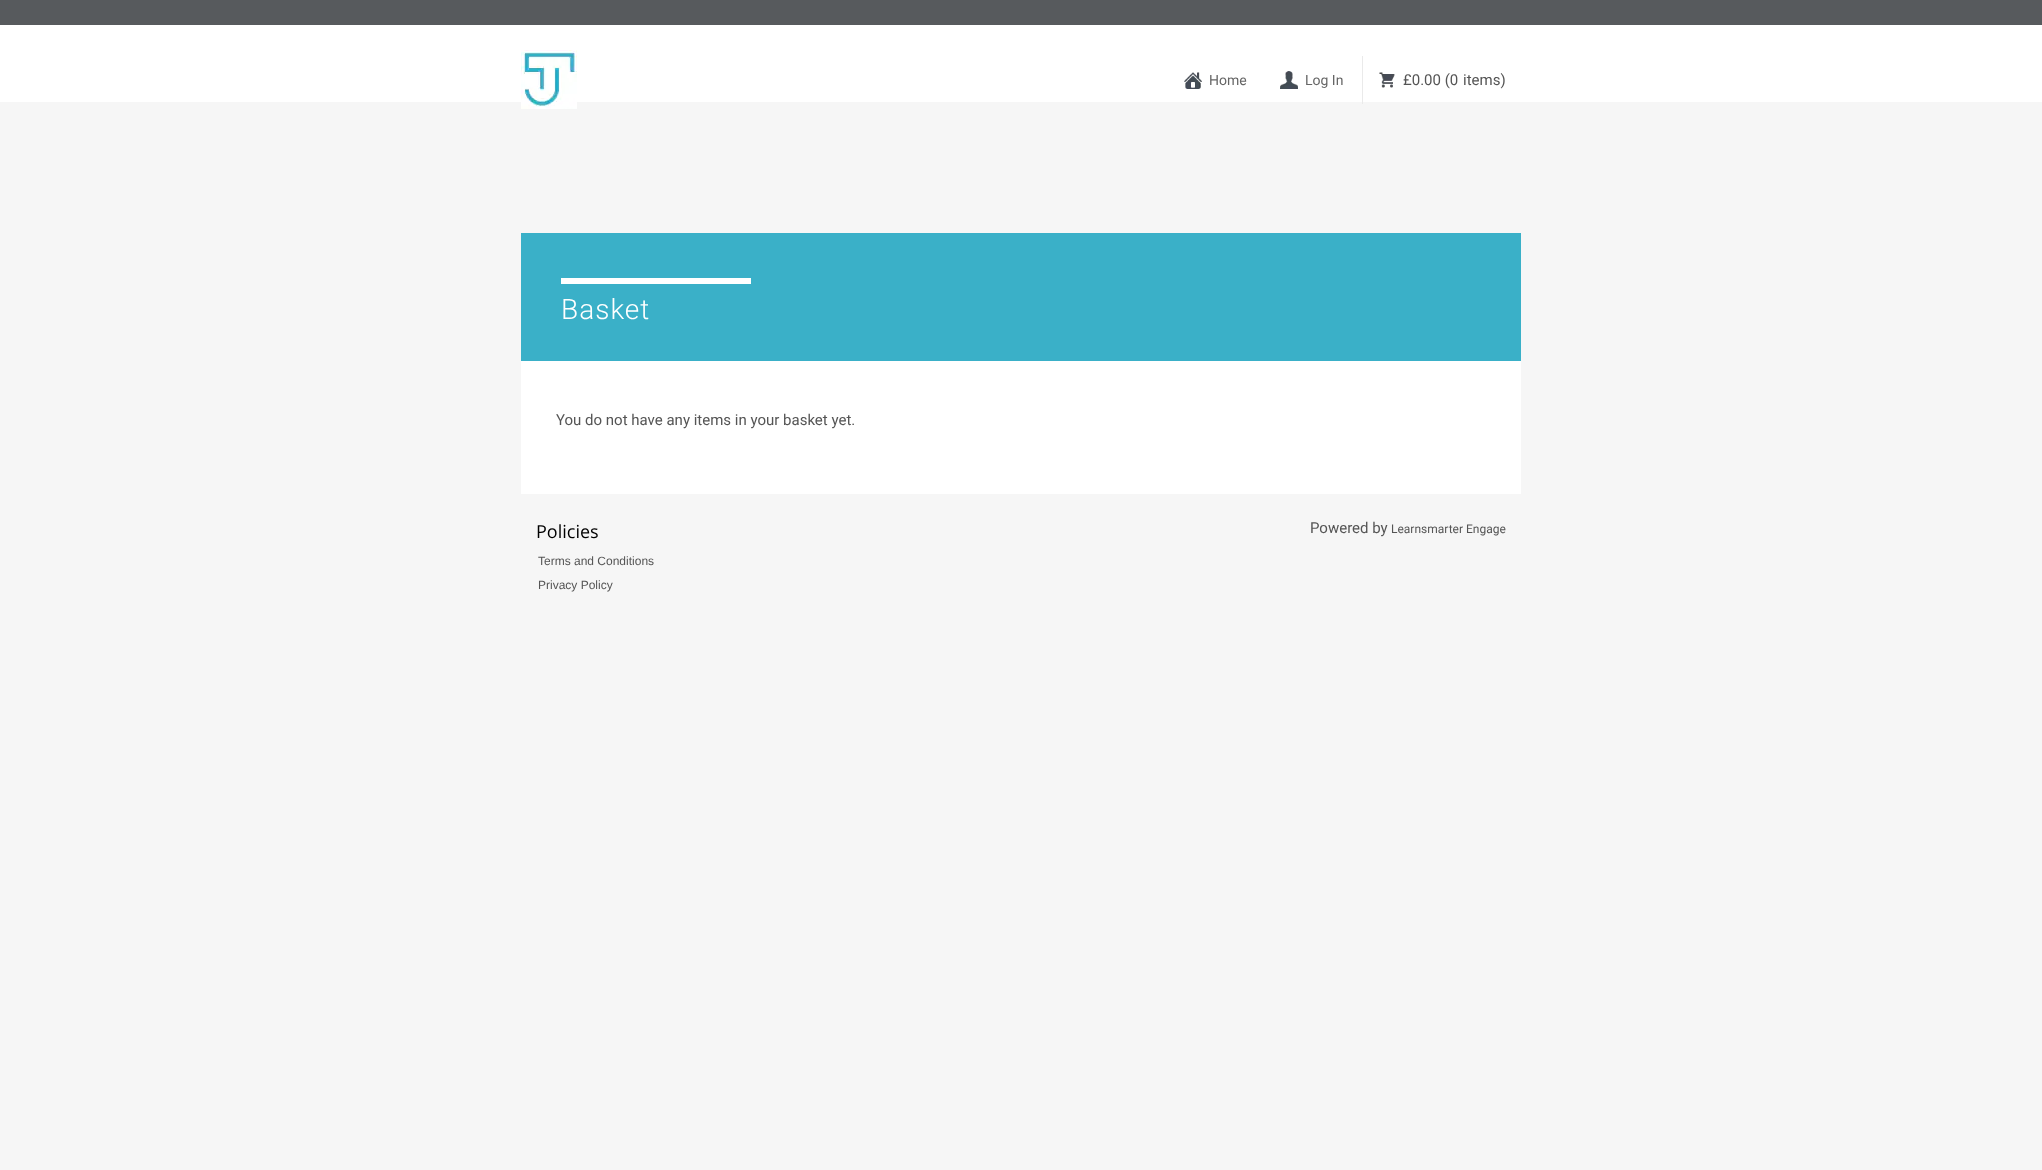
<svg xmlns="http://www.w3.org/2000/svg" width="2042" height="1170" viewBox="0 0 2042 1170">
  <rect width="100%" height="100%" fill="rgb(246,246,246)"/>
  <rect x="0" y="25" width="2042" height="77" fill="rgb(255,255,255)"/>
  <rect x="0" y="0" width="2042" height="25" fill="rgb(87,90,93)"/>
  <image x="521" y="50" width="56" height="59" href="pic1.png"/>
  <image x="1184" y="72" width="18" height="17" href="pic2.png"/>
  <text x="1209" y="85" font-family="Roboto" font-size="14" fill="rgb(102,102,102)">Home</text>
  <image x="1280" y="71" width="18" height="18" href="pic3.png"/>
  <text x="1305" y="85" font-family="Roboto" font-size="14" fill="rgb(102,102,102)">Log In</text>
  <image x="1379" y="72" width="16" height="16" href="pic4.png"/>
  <rect x="1362" y="56" width="1" height="48" fill="rgb(234,234,234)"/>
  <g font-family="Roboto" font-size="15" fill="rgb(85,85,85)">
    <text x="1403" y="85">£0.00 (0</text>
    <text x="1463" y="85">items)</text>
  </g>
  <rect x="521" y="233" width="1000" height="128" fill="rgb(58,176,200)"/>
  <rect x="561" y="278" width="190" height="6" fill="rgb(255,255,255)"/>
  <text x="561" y="319" font-family="Roboto" font-size="28" font-weight="300" letter-spacing="1" fill="rgb(255,255,255)">Basket</text>
  <rect x="521" y="361" width="1000" height="133" fill="rgb(255,255,255)"/>
  <text x="556" y="425" font-family="Roboto" font-size="15" fill="rgb(85,85,85)">You do not have any items in your basket yet.</text>
  <text x="536" y="538" font-family="Open Sans" font-size="18" fill="rgb(0,0,0)">Policies</text>
  <g font-family="Liberation Sans" font-size="12" fill="rgb(85,85,85)">
    <text x="538" y="565">Terms and Conditions</text>
    <text x="538" y="589">Privacy Policy</text>
  </g>
  <text x="1310" y="533" font-family="Roboto" font-size="15" fill="rgb(85,85,85)">Powered by</text>
  <text x="1391" y="533" font-family="Roboto" font-size="12" fill="rgb(85,85,85)">Learnsmarter Engage</text>
</svg>
